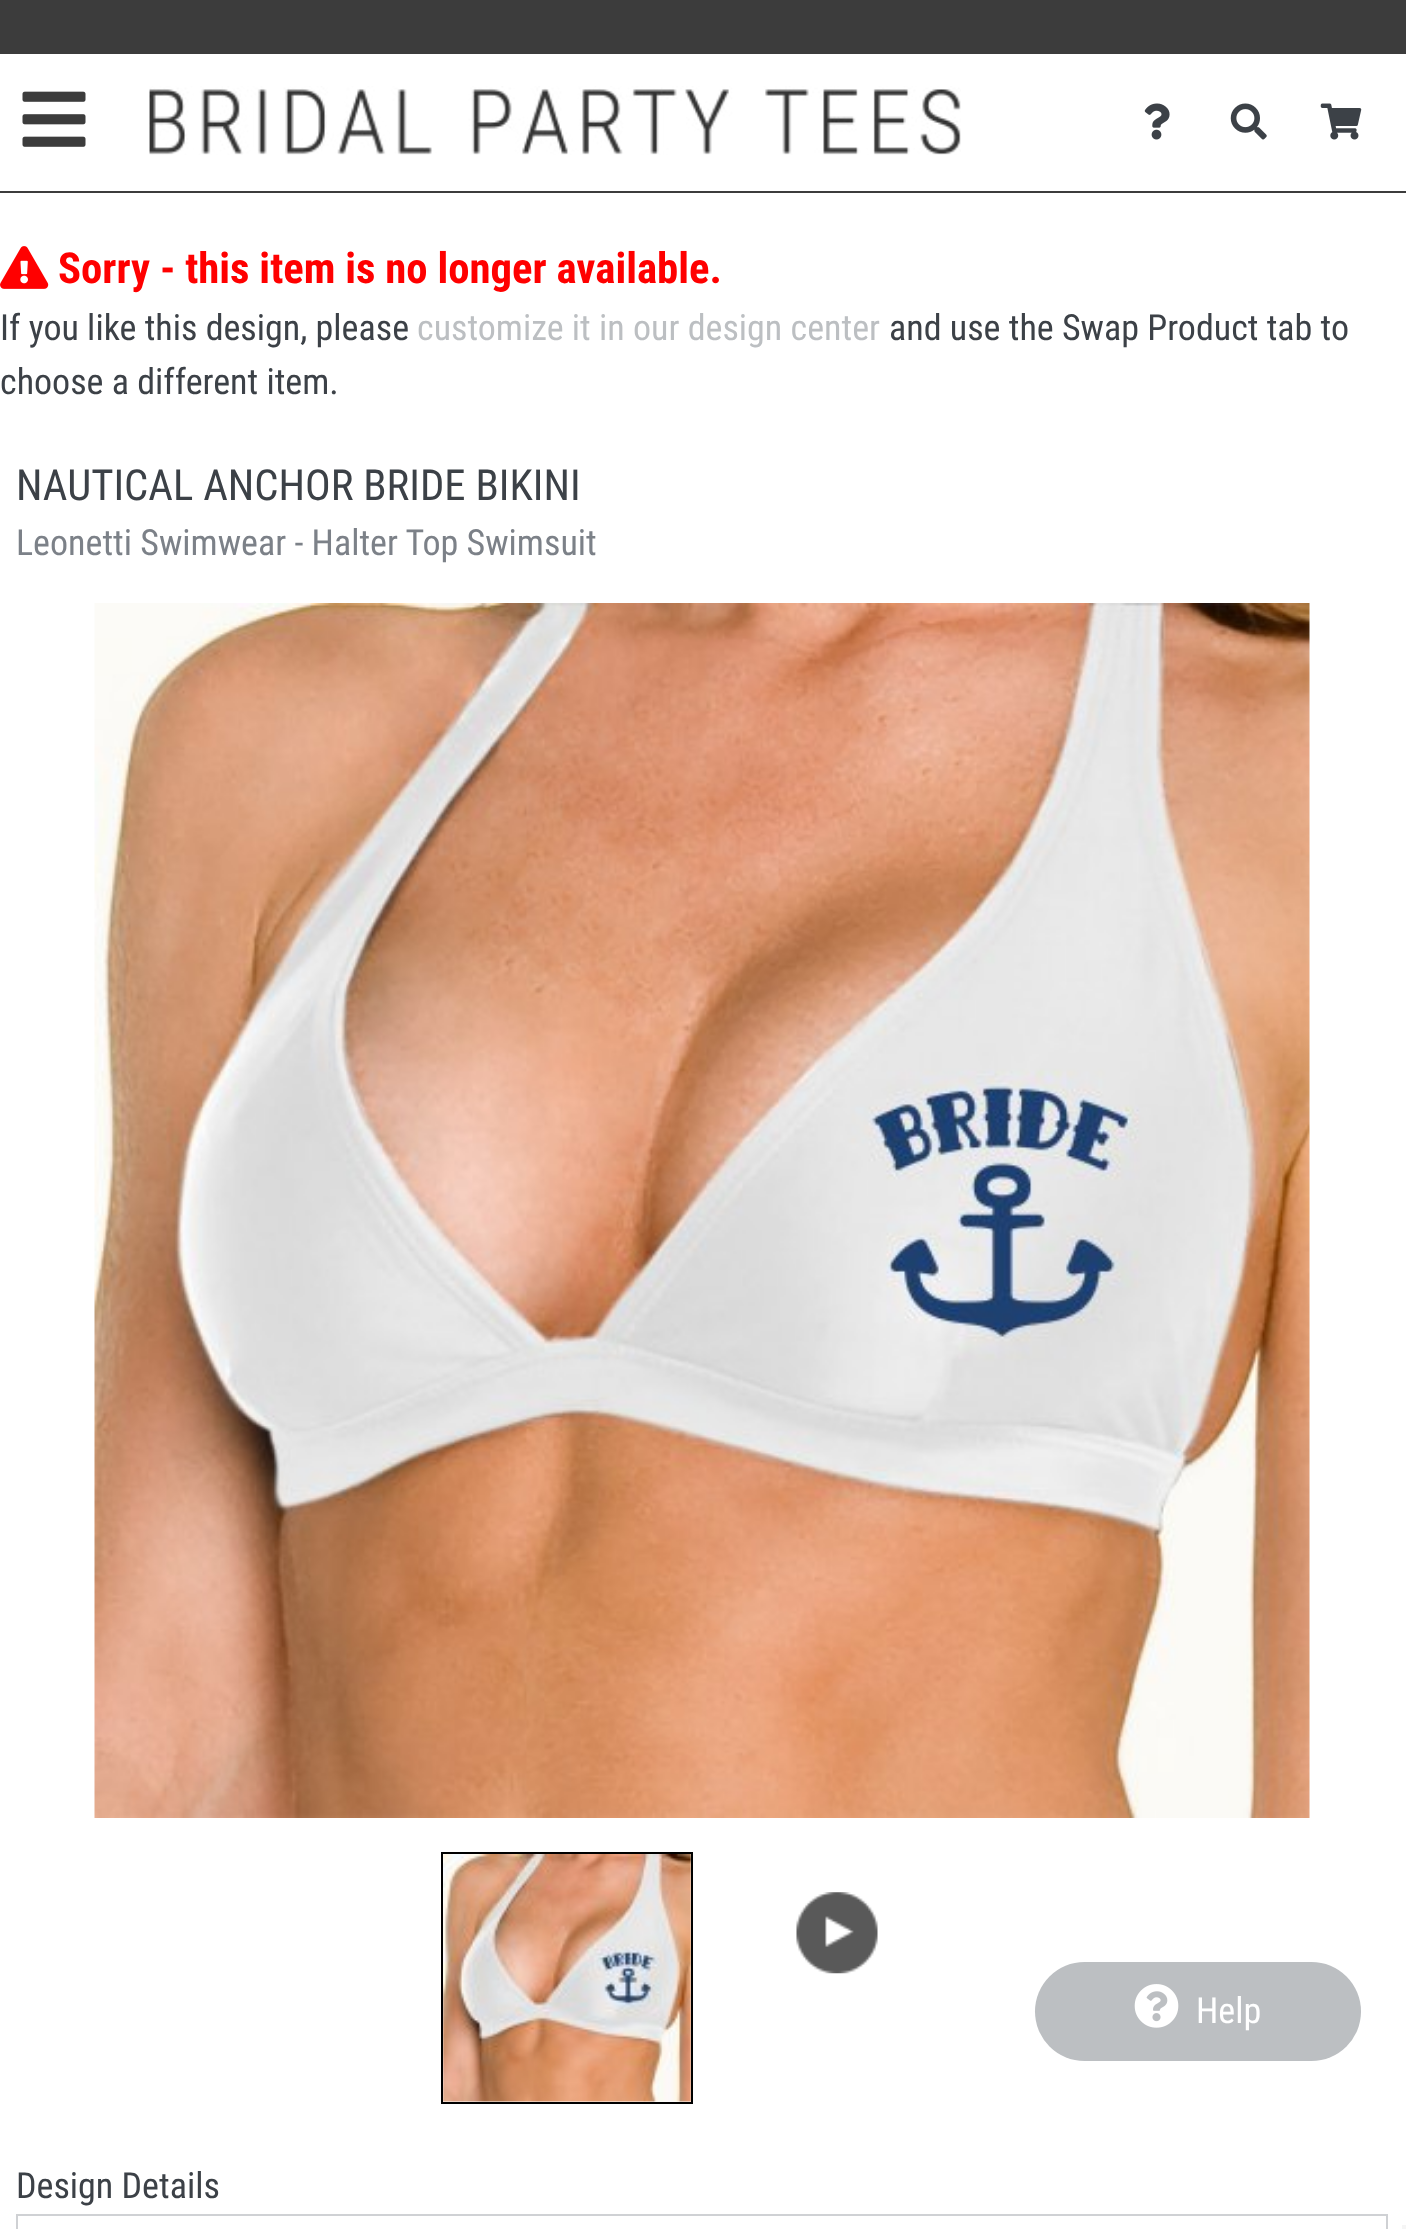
<svg xmlns="http://www.w3.org/2000/svg" width="1406" height="2229" viewBox="0 0 1406 2229">
  <rect width="100%" height="100%" fill="rgb(255,255,255)"/>
  <rect x="0" y="0" width="1406" height="54" fill="rgb(60,60,60)"/>
  <rect x="0" y="191" width="1406" height="2" fill="rgb(60,60,60)"/>
  <image x="22" y="91" width="64" height="56" href="pic1.png"/>
  <image x="149" y="86" width="812" height="69" href="pic2.png"/>
  <image x="1144" y="103" width="26" height="37" href="pic3.png"/>
  <image x="1230" y="103" width="37" height="37" href="pic4.png"/>
  <image x="1320" y="103" width="42" height="37" href="pic5.png"/>
  <image x="0" y="246" width="49" height="43" href="pic6.png"/>
  <text x="58" y="283" font-family="Roboto Condensed" font-size="42.75" font-weight="bold" fill="rgb(255,0,0)">Sorry - this item is no longer available.</text>
  <text x="0" y="340" font-family="Roboto Condensed" font-size="36" fill="rgb(60,65,71)">If you like this design, please</text>
  <text x="417" y="340" font-family="Roboto Condensed" font-size="36" fill="rgb(188,191,194)">customize it in our design center</text>
  <g font-family="Roboto Condensed" font-size="36" fill="rgb(60,65,71)">
    <text x="889" y="340">and use the Swap Product tab to</text>
    <text x="0" y="394">choose a different item.</text>
  </g>
  <text x="16" y="500" font-family="Roboto Condensed" font-size="42.75" fill="rgb(60,65,71)">NAUTICAL ANCHOR BRIDE BIKINI</text>
  <text x="16" y="555" font-family="Roboto Condensed" font-size="36" fill="rgb(124,129,136)">Leonetti Swimwear - Halter Top Swimsuit</text>
  <image x="94" y="603" width="1216" height="1215" href="pic7.png"/>
  <rect x="442" y="1853" width="250" height="250" fill="none" stroke="rgb(0,0,0)" stroke-width="2"/>
  <image x="443" y="1854" width="248" height="248" href="pic8.png"/>
  <image x="796" y="1892" width="82" height="82" href="pic9.png"/>
  <text x="16" y="2198" font-family="Roboto Condensed" font-size="36" fill="rgb(60,65,71)">Design Details</text>
  <rect x="17" y="2215" width="1370" height="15" fill="none" stroke="rgb(207,209,212)" stroke-width="2"/>
  <rect x="1035" y="1962" width="326" height="99" rx="49.5" fill="rgb(188,191,194)"/>
  <image x="1134" y="1984" width="45" height="44" href="pic10.png"/>
  <text x="1196" y="2023" font-family="Roboto Condensed" font-size="36" fill="rgb(255,255,255)">Help</text>
  <rect x="1402" y="2225" width="4" height="4" fill="rgb(245,245,245)"/>
</svg>
